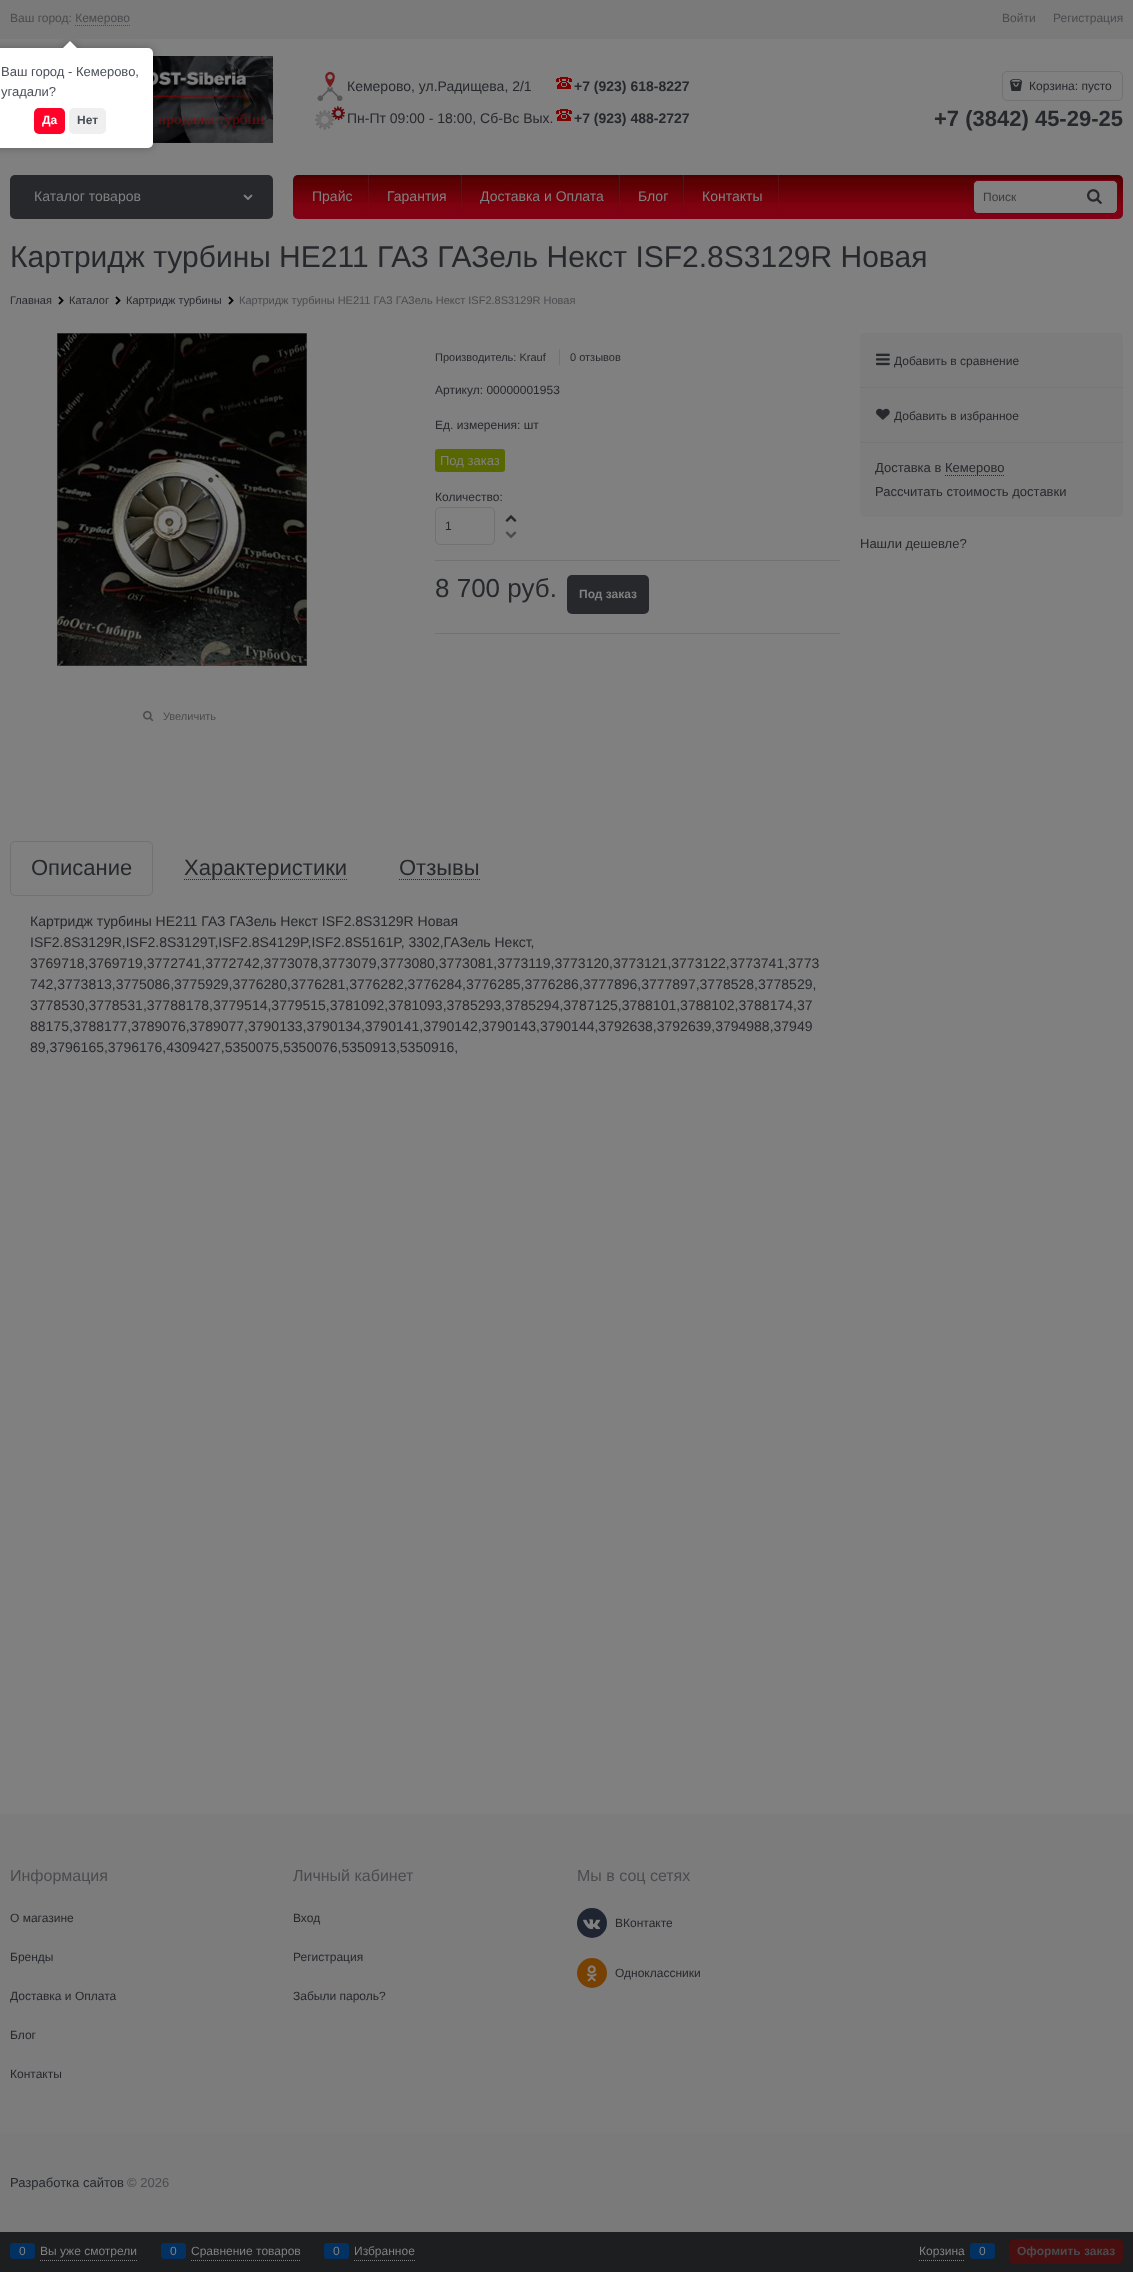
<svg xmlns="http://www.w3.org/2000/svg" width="1133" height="2272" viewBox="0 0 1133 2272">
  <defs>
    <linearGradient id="g1" gradientUnits="userSpaceOnUse" x1="708" y1="175" x2="708" y2="219"><stop offset="0" stop-color="rgb(68,0,1)"/><stop offset="0.11" stop-color="rgb(88,1,3)"/><stop offset="0.14" stop-color="rgb(90,1,4)"/><stop offset="0.19" stop-color="rgb(91,1,4)"/><stop offset="0.32" stop-color="rgb(100,0,7)"/><stop offset="0.41" stop-color="rgb(106,2,10)"/><stop offset="0.43" stop-color="rgb(109,1,9)"/><stop offset="0.62" stop-color="rgb(121,1,14)"/><stop offset="0.65" stop-color="rgb(125,2,14)"/><stop offset="0.73" stop-color="rgb(128,2,17)"/><stop offset="0.95" stop-color="rgb(128,1,22)"/><stop offset="1" stop-color="rgb(128,1,21)"/></linearGradient>
    <linearGradient id="g2" gradientUnits="userSpaceOnUse" x1="369" y1="175" x2="369" y2="219"><stop offset="0" stop-color="rgb(128,128,128)" stop-opacity="0.14"/><stop offset="0.72" stop-color="rgb(128,128,128)" stop-opacity="0.02"/><stop offset="1" stop-color="rgb(128,128,128)" stop-opacity="0"/></linearGradient>
    <linearGradient id="g3" gradientUnits="userSpaceOnUse" x1="368" y1="175" x2="368" y2="219"><stop offset="0" stop-color="rgb(29,29,29)" stop-opacity="0.39"/><stop offset="0.17" stop-color="rgb(29,29,29)" stop-opacity="0.33"/><stop offset="0.61" stop-color="rgb(29,29,29)" stop-opacity="0.12"/><stop offset="0.96" stop-color="rgb(29,29,29)" stop-opacity="0.01"/><stop offset="0.98" stop-color="rgb(128,128,128)" stop-opacity="0.01"/><stop offset="1" stop-color="rgb(128,128,128)" stop-opacity="0"/></linearGradient>
    <linearGradient id="g4" gradientUnits="userSpaceOnUse" x1="462" y1="175" x2="462" y2="219"><stop offset="0" stop-color="rgb(128,128,128)" stop-opacity="0.14"/><stop offset="0.72" stop-color="rgb(128,128,128)" stop-opacity="0.02"/><stop offset="1" stop-color="rgb(128,128,128)" stop-opacity="0"/></linearGradient>
    <linearGradient id="g5" gradientUnits="userSpaceOnUse" x1="461" y1="175" x2="461" y2="219"><stop offset="0" stop-color="rgb(29,29,29)" stop-opacity="0.39"/><stop offset="0.17" stop-color="rgb(29,29,29)" stop-opacity="0.33"/><stop offset="0.61" stop-color="rgb(29,29,29)" stop-opacity="0.12"/><stop offset="0.96" stop-color="rgb(29,29,29)" stop-opacity="0.01"/><stop offset="0.98" stop-color="rgb(128,128,128)" stop-opacity="0.01"/><stop offset="1" stop-color="rgb(128,128,128)" stop-opacity="0"/></linearGradient>
    <linearGradient id="g6" gradientUnits="userSpaceOnUse" x1="620" y1="175" x2="620" y2="219"><stop offset="0" stop-color="rgb(128,128,128)" stop-opacity="0.14"/><stop offset="0.72" stop-color="rgb(128,128,128)" stop-opacity="0.02"/><stop offset="1" stop-color="rgb(128,128,128)" stop-opacity="0"/></linearGradient>
    <linearGradient id="g7" gradientUnits="userSpaceOnUse" x1="619" y1="175" x2="619" y2="219"><stop offset="0" stop-color="rgb(29,29,29)" stop-opacity="0.39"/><stop offset="0.17" stop-color="rgb(29,29,29)" stop-opacity="0.33"/><stop offset="0.61" stop-color="rgb(29,29,29)" stop-opacity="0.12"/><stop offset="0.96" stop-color="rgb(29,29,29)" stop-opacity="0.01"/><stop offset="0.98" stop-color="rgb(128,128,128)" stop-opacity="0.01"/><stop offset="1" stop-color="rgb(128,128,128)" stop-opacity="0"/></linearGradient>
    <linearGradient id="g8" gradientUnits="userSpaceOnUse" x1="684" y1="175" x2="684" y2="219"><stop offset="0" stop-color="rgb(128,128,128)" stop-opacity="0.14"/><stop offset="0.72" stop-color="rgb(128,128,128)" stop-opacity="0.02"/><stop offset="1" stop-color="rgb(128,128,128)" stop-opacity="0"/></linearGradient>
    <linearGradient id="g9" gradientUnits="userSpaceOnUse" x1="683" y1="175" x2="683" y2="219"><stop offset="0" stop-color="rgb(29,29,29)" stop-opacity="0.39"/><stop offset="0.17" stop-color="rgb(29,29,29)" stop-opacity="0.33"/><stop offset="0.61" stop-color="rgb(29,29,29)" stop-opacity="0.12"/><stop offset="0.96" stop-color="rgb(29,29,29)" stop-opacity="0.01"/><stop offset="0.98" stop-color="rgb(128,128,128)" stop-opacity="0.01"/><stop offset="1" stop-color="rgb(128,128,128)" stop-opacity="0"/></linearGradient>
    <linearGradient id="g10" gradientUnits="userSpaceOnUse" x1="779" y1="175" x2="779" y2="219"><stop offset="0" stop-color="rgb(128,128,128)" stop-opacity="0.14"/><stop offset="0.72" stop-color="rgb(128,128,128)" stop-opacity="0.02"/><stop offset="1" stop-color="rgb(128,128,128)" stop-opacity="0"/></linearGradient>
    <linearGradient id="g11" gradientUnits="userSpaceOnUse" x1="778" y1="175" x2="778" y2="219"><stop offset="0" stop-color="rgb(29,29,29)" stop-opacity="0.39"/><stop offset="0.17" stop-color="rgb(29,29,29)" stop-opacity="0.33"/><stop offset="0.61" stop-color="rgb(29,29,29)" stop-opacity="0.12"/><stop offset="0.96" stop-color="rgb(29,29,29)" stop-opacity="0.01"/><stop offset="0.98" stop-color="rgb(128,128,128)" stop-opacity="0.01"/><stop offset="1" stop-color="rgb(128,128,128)" stop-opacity="0"/></linearGradient>
    <clipPath id="clip1"><rect x="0" y="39" width="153" height="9"/></clipPath>
    <clipPath id="clip2"><rect x="0" y="39" width="153" height="9"/></clipPath>
  </defs>
  <rect width="100%" height="100%" fill="rgb(128,128,128)"/>
  <rect x="0" y="0" width="1133" height="39" fill="rgb(122,122,122)"/>
  <text x="10" y="22" font-family="Liberation Sans" font-size="12" fill="rgb(74,75,78)">Ваш город: Кемерово</text>
  <path d="M75 25.5H130" fill="none" stroke="rgb(74,75,78)" stroke-dasharray="1 1"/>
  <g font-family="Liberation Sans" font-size="12" fill="rgb(74,75,78)">
    <text x="1002" y="22">Войти</text>
    <text x="1053" y="22">Регистрация</text>
  </g>
  <image x="153" y="56" width="120" height="87" href="pic1.png"/>
  <image x="317" y="71" width="26" height="30" href="pic2.png"/>
  <text x="347" y="91" font-family="Liberation Sans" font-size="14" fill="rgb(38,40,44)">Кемерово, ул.Радищева, 2/1</text>
  <image x="556" y="77" width="16" height="12" href="pic3.png"/>
  <text x="574" y="91" font-family="Liberation Sans" font-size="14" font-weight="bold" fill="rgb(38,40,44)">+7 (923) 618-8227</text>
  <image x="315" y="106" width="30" height="24" href="pic4.png"/>
  <text x="347" y="123" font-family="Liberation Sans" font-size="14" fill="rgb(38,40,44)">Пн-Пт 09:00 - 18:00, Сб-Вс Вых.</text>
  <image x="556" y="109" width="16" height="12" href="pic3.png"/>
  <text x="574" y="123" font-family="Liberation Sans" font-size="14" font-weight="bold" fill="rgb(38,40,44)">+7 (923) 488-2727</text>
  <rect x="1002.5" y="71.5" width="120" height="29" rx="4.5" fill="none" stroke="rgb(113,114,114)"/>
  <image x="1010" y="79" width="12" height="12" href="pic5.png"/>
  <text x="1029" y="90" font-family="Liberation Sans" font-size="12" fill="rgb(38,40,44)">Корзина: пусто</text>
  <text x="934" y="126" font-family="Liberation Sans" font-size="22" font-weight="bold" fill="rgb(38,40,44)">+7 (3842) 45-29-25</text>
  <rect x="10" y="175" width="263" height="44" rx="5" fill="rgb(38,40,44)"/>
  <text x="34" y="201" font-family="Liberation Sans" font-size="14" fill="rgb(128,128,128)">Каталог товаров</text>
  <image x="243" y="194" width="10" height="7" href="pic6.png"/>
  <rect x="293" y="175" width="830" height="44" rx="5" fill="url(#g1)"/>
  <text x="312" y="201" font-family="Liberation Sans" font-size="14" fill="rgb(128,128,128)">Прайс</text>
  <rect x="368" y="175" width="1" height="31" fill="url(#g2)"/>
  <rect x="367" y="175" width="1" height="44" fill="url(#g3)"/>
  <text x="387" y="201" font-family="Liberation Sans" font-size="14" fill="rgb(128,128,128)">Гарантия</text>
  <rect x="461" y="175" width="1" height="31" fill="url(#g4)"/>
  <rect x="460" y="175" width="1" height="44" fill="url(#g5)"/>
  <text x="480" y="201" font-family="Liberation Sans" font-size="14" fill="rgb(128,128,128)">Доставка и Оплата</text>
  <rect x="619" y="175" width="1" height="31" fill="url(#g6)"/>
  <rect x="618" y="175" width="1" height="44" fill="url(#g7)"/>
  <text x="638" y="201" font-family="Liberation Sans" font-size="14" fill="rgb(128,128,128)">Блог</text>
  <rect x="683" y="175" width="1" height="31" fill="url(#g8)"/>
  <rect x="682" y="175" width="1" height="44" fill="url(#g9)"/>
  <text x="702" y="201" font-family="Liberation Sans" font-size="14" fill="rgb(128,128,128)">Контакты</text>
  <rect x="778" y="175" width="1" height="31" fill="url(#g10)"/>
  <rect x="777" y="175" width="1" height="44" fill="url(#g11)"/>
  <rect x="973.5" y="180.5" width="144" height="33" rx="4.5" fill="rgb(128,128,128)" stroke="rgb(116,0,18)"/>
  <text x="983" y="201" font-family="Liberation Sans" font-size="12" fill="rgb(59,59,59)">Поиск</text>
  <image x="1087" y="189" width="15" height="15" href="pic7.png"/>
  <text x="10" y="267" font-family="Liberation Sans" font-size="30" fill="rgb(38,40,44)">Картридж турбины HE211 ГАЗ ГАЗель Некст ISF2.8S3129R Новая</text>
  <text x="10" y="304" font-family="Liberation Sans" font-size="11" fill="rgb(38,40,44)">Главная</text>
  <image x="58" y="296" width="6" height="9" href="pic8.png"/>
  <text x="69" y="304" font-family="Liberation Sans" font-size="11" fill="rgb(38,40,44)">Каталог</text>
  <image x="115" y="296" width="6" height="9" href="pic8.png"/>
  <text x="126" y="304" font-family="Liberation Sans" font-size="11" fill="rgb(38,40,44)">Картридж турбины</text>
  <image x="228" y="296" width="6" height="9" href="pic8.png"/>
  <text x="239" y="304" font-family="Liberation Sans" font-size="11" fill="rgb(74,75,78)">Картридж турбины HE211 ГАЗ ГАЗель Некст ISF2.8S3129R Новая</text>
  <text x="435" y="361" font-family="Liberation Sans" font-size="11" fill="rgb(38,40,44)">Производитель: Krauf</text>
  <rect x="559" y="349" width="1" height="16" fill="rgb(113,114,114)"/>
  <text x="570" y="361" font-family="Liberation Sans" font-size="11" fill="rgb(38,40,44)">0 отзывов</text>
  <g font-family="Liberation Sans" font-size="12" fill="rgb(38,40,44)">
    <text x="435" y="394">Артикул: 00000001953</text>
    <text x="435" y="429">Ед. измерения: шт</text>
  </g>
  <rect x="435" y="449" width="70" height="23" rx="3" fill="rgb(89,103,2)"/>
  <text x="440" y="465" font-family="Liberation Sans" font-size="13" fill="rgb(128,128,128)">Под заказ</text>
  <text x="435" y="501" font-family="Liberation Sans" font-size="12" fill="rgb(38,40,44)">Количество:</text>
  <rect x="435.5" y="507.5" width="59" height="37" rx="4.5" fill="none" stroke="rgb(113,114,114)"/>
  <text x="445" y="530" font-family="Liberation Sans" font-size="12" fill="rgb(38,40,44)">1</text>
  <image x="505" y="515" width="12" height="7" href="pic9.png"/>
  <image x="505" y="531" width="12" height="8" href="pic10.png"/>
  <rect x="435" y="560" width="405" height="1" fill="rgb(113,114,114)"/>
  <rect x="435" y="633" width="405" height="1" fill="rgb(113,114,114)"/>
  <text x="435" y="597" font-family="Liberation Sans" font-size="26" fill="rgb(38,40,44)">8 700 руб.</text>
  <rect x="567" y="575" width="82" height="39" rx="5" fill="rgb(38,40,44)"/>
  <text x="579" y="598" font-family="Liberation Sans" font-size="12" font-weight="bold" fill="rgb(128,128,128)">Под заказ</text>
  <image x="57" y="333" width="250" height="333" href="pic11.png"/>
  <image x="143" y="710" width="11" height="12" href="pic12.png"/>
  <text x="163" y="720" font-family="Liberation Sans" font-size="11" fill="rgb(74,75,78)">Увеличить</text>
  <rect x="10.5" y="841.5" width="142" height="54" rx="4.5" fill="none" stroke="rgb(113,114,114)"/>
  <text x="31" y="875" font-family="Liberation Sans" font-size="22" fill="rgb(38,40,44)">Описание</text>
  <path d="M184 879.5H347" fill="none" stroke="rgb(38,40,44)" stroke-dasharray="1 1"/>
  <text x="184" y="875" font-family="Liberation Sans" font-size="22" fill="rgb(38,40,44)">Характеристики</text>
  <path d="M399 879.5H480" fill="none" stroke="rgb(38,40,44)" stroke-dasharray="1 1"/>
  <text x="399" y="875" font-family="Liberation Sans" font-size="22" fill="rgb(38,40,44)">Отзывы</text>
  <g font-family="Liberation Sans" font-size="14" fill="rgb(38,40,44)">
    <text>
      <tspan x="30" y="926">Картридж турбины HE211 ГАЗ ГАЗель Некст ISF2.8S3129R Новая</tspan>
      <tspan x="30" y="947">ISF2.8S3129R,ISF2.8S3129T,ISF2.8S4129P,ISF2.8S5161P, 3302,ГАЗель Некст,</tspan>
      <tspan x="30" y="968">3769718,3769719,3772741,3772742,3773078,3773079,3773080,3773081,3773119,3773120,3773121,3773122,3773741,3773</tspan>
      <tspan x="30" y="989">742,3773813,3775086,3775929,3776280,3776281,3776282,3776284,3776285,3776286,3777896,3777897,3778528,3778529,</tspan>
      <tspan x="30" y="1010">3778530,3778531,37788178,3779514,3779515,3781092,3781093,3785293,3785294,3787125,3788101,3788102,3788174,37</tspan>
      <tspan x="30" y="1031">88175,3788177,3789076,3789077,3790133,3790134,3790141,3790142,3790143,3790144,3792638,3792639,3794988,37949</tspan>
      <tspan x="30" y="1052">89,3796165,3796176,4309427,5350075,5350076,5350913,5350916,</tspan>
    </text>
  </g>
  <rect x="860" y="333" width="263" height="184" rx="5" fill="rgb(124,124,124)"/>
  <rect x="860" y="387" width="263" height="1" fill="rgb(117,117,117)"/>
  <image x="876" y="353" width="14" height="13" href="pic13.png"/>
  <text x="894" y="365" font-family="Liberation Sans" font-size="12" fill="rgb(38,40,44)">Добавить в сравнение</text>
  <rect x="860" y="442" width="263" height="1" fill="rgb(117,117,117)"/>
  <image x="876" y="408" width="14" height="12" href="pic14.png"/>
  <text x="894" y="420" font-family="Liberation Sans" font-size="12" fill="rgb(38,40,44)">Добавить в избранное</text>
  <text x="875" y="472" font-family="Liberation Sans" font-size="13" fill="rgb(38,40,44)">Доставка в Кемерово</text>
  <path d="M945 475.5H1004" fill="none" stroke="rgb(38,40,44)" stroke-dasharray="1 1"/>
  <g font-family="Liberation Sans" font-size="13" fill="rgb(38,40,44)">
    <text x="875" y="496">Рассчитать стоимость доставки</text>
    <text x="860" y="548">Нашли дешевле?</text>
  </g>
  <rect x="0" y="1814" width="1133" height="319" fill="rgb(124,124,124)"/>
  <text x="10" y="1881" font-family="Liberation Sans" font-size="16" fill="rgb(74,75,78)">Информация</text>
  <g font-family="Liberation Sans" font-size="12" fill="rgb(38,40,44)">
    <text x="10" y="1922">О магазине</text>
    <text x="10" y="1961">Бренды</text>
    <text x="10" y="2000">Доставка и Оплата</text>
    <text x="10" y="2039">Блог</text>
    <text x="10" y="2078">Контакты</text>
  </g>
  <text x="293" y="1881" font-family="Liberation Sans" font-size="16" fill="rgb(74,75,78)">Личный кабинет</text>
  <g font-family="Liberation Sans" font-size="12" fill="rgb(38,40,44)">
    <text x="293" y="1922">Вход</text>
    <text x="293" y="1961">Регистрация</text>
    <text x="293" y="2000">Забыли пароль?</text>
  </g>
  <text x="577" y="1881" font-family="Liberation Sans" font-size="16" fill="rgb(74,75,78)">Мы в соц сетях</text>
  <circle cx="592" cy="1923" r="15" fill="rgb(30,37,48)"/>
  <image x="583" y="1919" width="18" height="11" href="pic15.png"/>
  <text x="615" y="1927" font-family="Liberation Sans" font-size="12" fill="rgb(38,40,44)">ВКонтакте</text>
  <circle cx="592" cy="1973" r="15" fill="rgb(119,65,4)"/>
  <image x="586" y="1965" width="11" height="17" href="pic16.png"/>
  <text x="615" y="1977" font-family="Liberation Sans" font-size="12" fill="rgb(38,40,44)">Одноклассники</text>
  <rect x="0" y="2133" width="1133" height="99" fill="rgb(122,122,122)"/>
  <text x="10" y="2187" font-family="Liberation Sans" font-size="13" fill="rgb(38,40,44)">Разработка сайтов</text>
  <text x="127" y="2187" font-family="Liberation Sans" font-size="13" fill="rgb(74,75,78)">© 2026</text>
  <rect x="0" y="2232" width="1133" height="40" fill="rgb(28,30,32)"/>
  <path d="M40 2260.5H137" fill="none" stroke="rgb(128,128,128)" stroke-dasharray="1 1"/>
  <rect x="10" y="2243" width="25" height="16" rx="3" fill="rgb(3,49,97)"/>
  <g font-family="Liberation Sans" font-size="12" fill="rgb(128,128,128)">
    <text x="19" y="2255">0</text>
    <text x="40" y="2255">Вы уже смотрели</text>
  </g>
  <path d="M191 2260.5H300" fill="none" stroke="rgb(128,128,128)" stroke-dasharray="1 1"/>
  <rect x="161" y="2243" width="25" height="16" rx="3" fill="rgb(3,49,97)"/>
  <g font-family="Liberation Sans" font-size="12" fill="rgb(128,128,128)">
    <text x="170" y="2255">0</text>
    <text x="191" y="2255">Сравнение товаров</text>
  </g>
  <path d="M354 2260.5H415" fill="none" stroke="rgb(128,128,128)" stroke-dasharray="1 1"/>
  <rect x="324" y="2243" width="25" height="16" rx="3" fill="rgb(3,49,97)"/>
  <g font-family="Liberation Sans" font-size="12" fill="rgb(128,128,128)">
    <text x="333" y="2255">0</text>
    <text x="354" y="2255">Избранное</text>
  </g>
  <path d="M919 2260.5H965" fill="none" stroke="rgb(128,128,128)" stroke-dasharray="1 1"/>
  <text x="919" y="2255" font-family="Liberation Sans" font-size="12" fill="rgb(128,128,128)">Корзина</text>
  <rect x="970" y="2243" width="25" height="16" rx="3" fill="rgb(3,49,97)"/>
  <text x="979" y="2255" font-family="Liberation Sans" font-size="12" fill="rgb(128,128,128)">0</text>
  <rect x="1009" y="2239" width="114" height="25" rx="5" fill="rgb(71,15,16)"/>
  <text x="1017" y="2255" font-family="Liberation Sans" font-size="12" font-weight="bold" fill="rgb(74,75,78)">Оформить заказ</text>
  <rect x="-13" y="48" width="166" height="100" rx="5" fill="rgba(0,0,0,0.25)" filter="blur(4.5px)"/>
  <rect x="-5" y="48" width="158" height="100" rx="5" fill="rgb(255,255,255)"/>
  <g clip-path="url(#clip1)">
    <rect x="65" y="43" width="10" height="10" fill="rgba(0,0,0,0.25)" filter="blur(4.5px)"/>
  </g>
  <g clip-path="url(#clip2)">
    <path d="M70 41L77 48L70 55L63 48Z" fill="rgb(255,255,255)"/>
  </g>
  <g font-family="Liberation Sans" font-size="13" fill="rgb(75,79,88)">
    <text>
      <tspan x="1" y="76">Ваш город - Кемерово,</tspan>
      <tspan x="1" y="96">угадали?</tspan>
    </text>
  </g>
  <rect x="34" y="108" width="31" height="26" rx="5" fill="rgb(255,1,41)"/>
  <text x="42" y="124" font-family="Liberation Sans" font-size="12" font-weight="bold" fill="rgb(255,255,255)">Да</text>
  <rect x="69" y="108" width="37" height="26" rx="5" fill="rgb(239,239,239)"/>
  <text x="77" y="124" font-family="Liberation Sans" font-size="12" font-weight="bold" fill="rgb(75,79,88)">Нет</text>
</svg>
